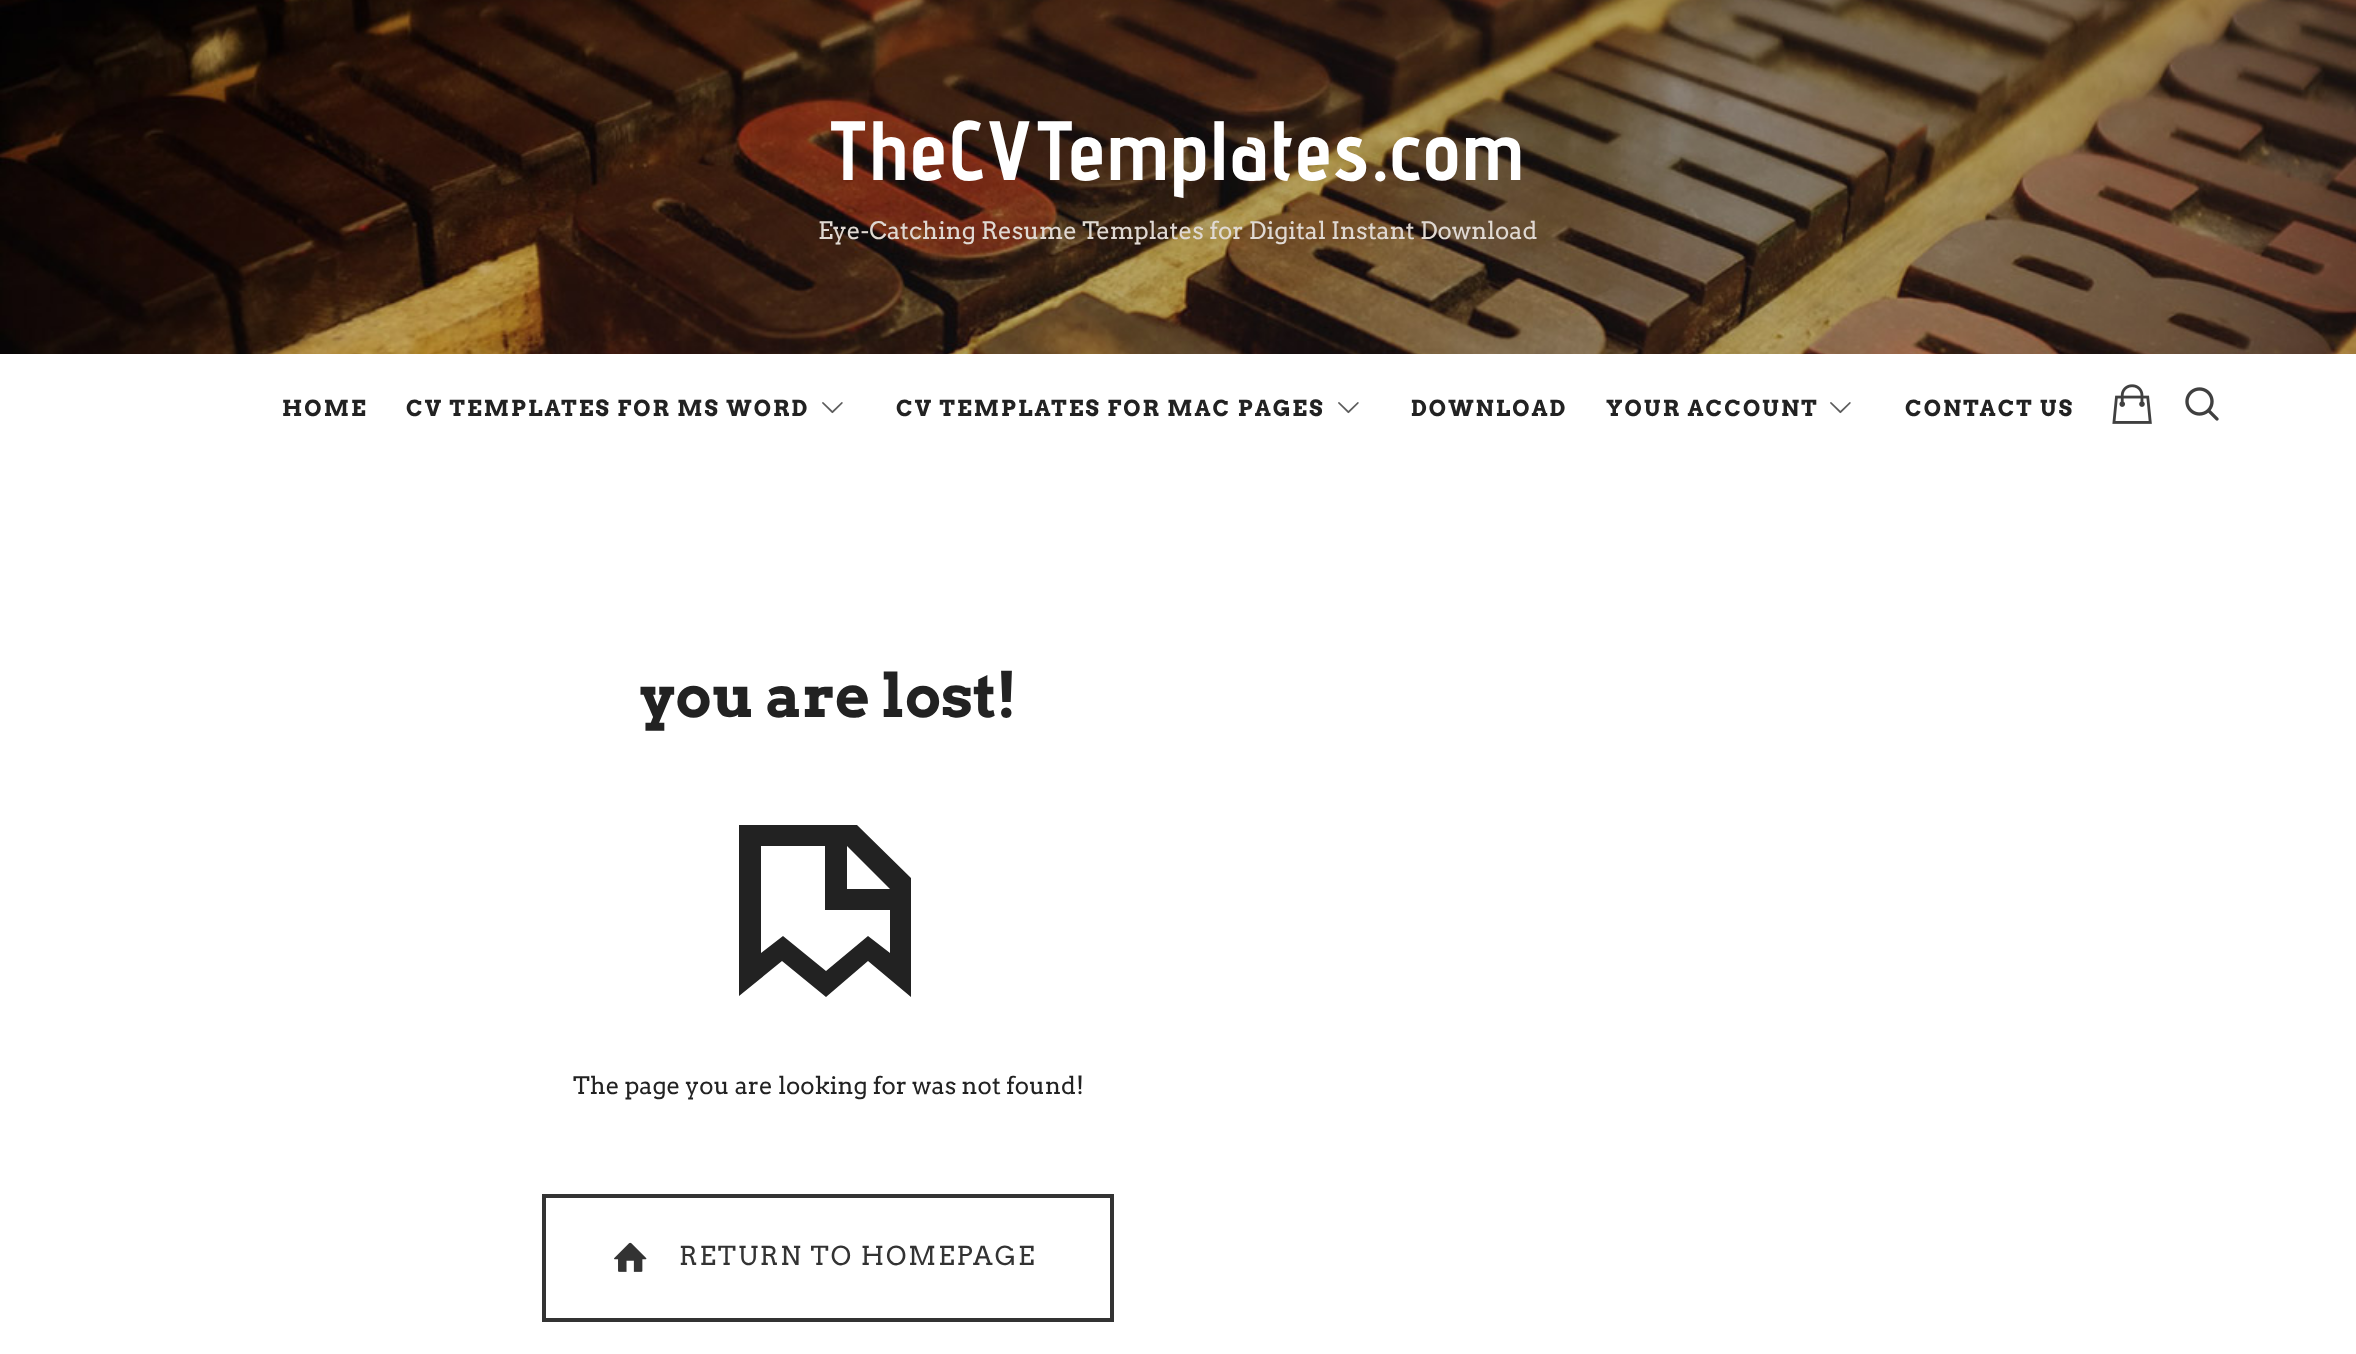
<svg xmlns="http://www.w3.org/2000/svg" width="2356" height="1354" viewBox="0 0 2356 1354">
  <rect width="100%" height="100%" fill="rgb(255,255,255)"/>
  <image x="0" y="0" width="2356" height="354" href="pic1.png"/>
  <text x="830" y="180" font-family="Advent Pro" font-size="84" font-weight="bold" letter-spacing="2" fill="rgb(255,255,255)">TheCVTemplates.com</text>
  <text x="818" y="239" font-family="Arvo" font-size="24" fill="rgb(224,217,211)">Eye-Catching Resume Templates for Digital Instant Download</text>
  <g font-family="Arvo" font-size="22" font-weight="bold" letter-spacing="2" fill="rgb(34,34,34)">
    <text x="282" y="416">HOME</text>
    <text x="406" y="416">CV TEMPLATES FOR MS WORD</text>
  </g>
  <image x="822" y="402" width="21" height="12" href="pic2.png"/>
  <text x="896" y="416" font-family="Arvo" font-size="22" font-weight="bold" letter-spacing="2" fill="rgb(34,34,34)">CV TEMPLATES FOR MAC PAGES</text>
  <image x="1338" y="402" width="21" height="12" href="pic2.png"/>
  <g font-family="Arvo" font-size="22" font-weight="bold" letter-spacing="2" fill="rgb(34,34,34)">
    <text x="1411" y="416">DOWNLOAD</text>
    <text x="1606" y="416">YOUR ACCOUNT</text>
  </g>
  <image x="1830" y="402" width="21" height="12" href="pic2.png"/>
  <text x="1905" y="416" font-family="Arvo" font-size="22" font-weight="bold" letter-spacing="2" fill="rgb(34,34,34)">CONTACT US</text>
  <image x="2112" y="384" width="40" height="40" href="pic3.png"/>
  <image x="2185" y="387" width="34" height="34" href="pic4.png"/>
  <text x="639" y="717" font-family="Arvo" font-size="60" font-weight="bold" fill="rgb(34,34,34)">you are lost!</text>
  <path d="M857 825L911 878V997L868 961L826 997L782 961L739 996V825ZM890 953V910H825V846H761V953L783 936L826 971L868 936ZM847 889H890L847 846Z" fill="rgb(34,34,34)"/>
  <text x="573" y="1094" font-family="Arvo" font-size="24" fill="rgb(34,34,34)">The page you are looking for was not found!</text>
  <rect x="544" y="1196" width="568" height="124" fill="none" stroke="rgb(51,51,51)" stroke-width="4"/>
  <image x="614" y="1242" width="33" height="30" href="pic5.png"/>
  <text x="679" y="1265" font-family="Arvo" font-size="26" letter-spacing="2" fill="rgb(51,51,51)">RETURN TO HOMEPAGE</text>
</svg>
